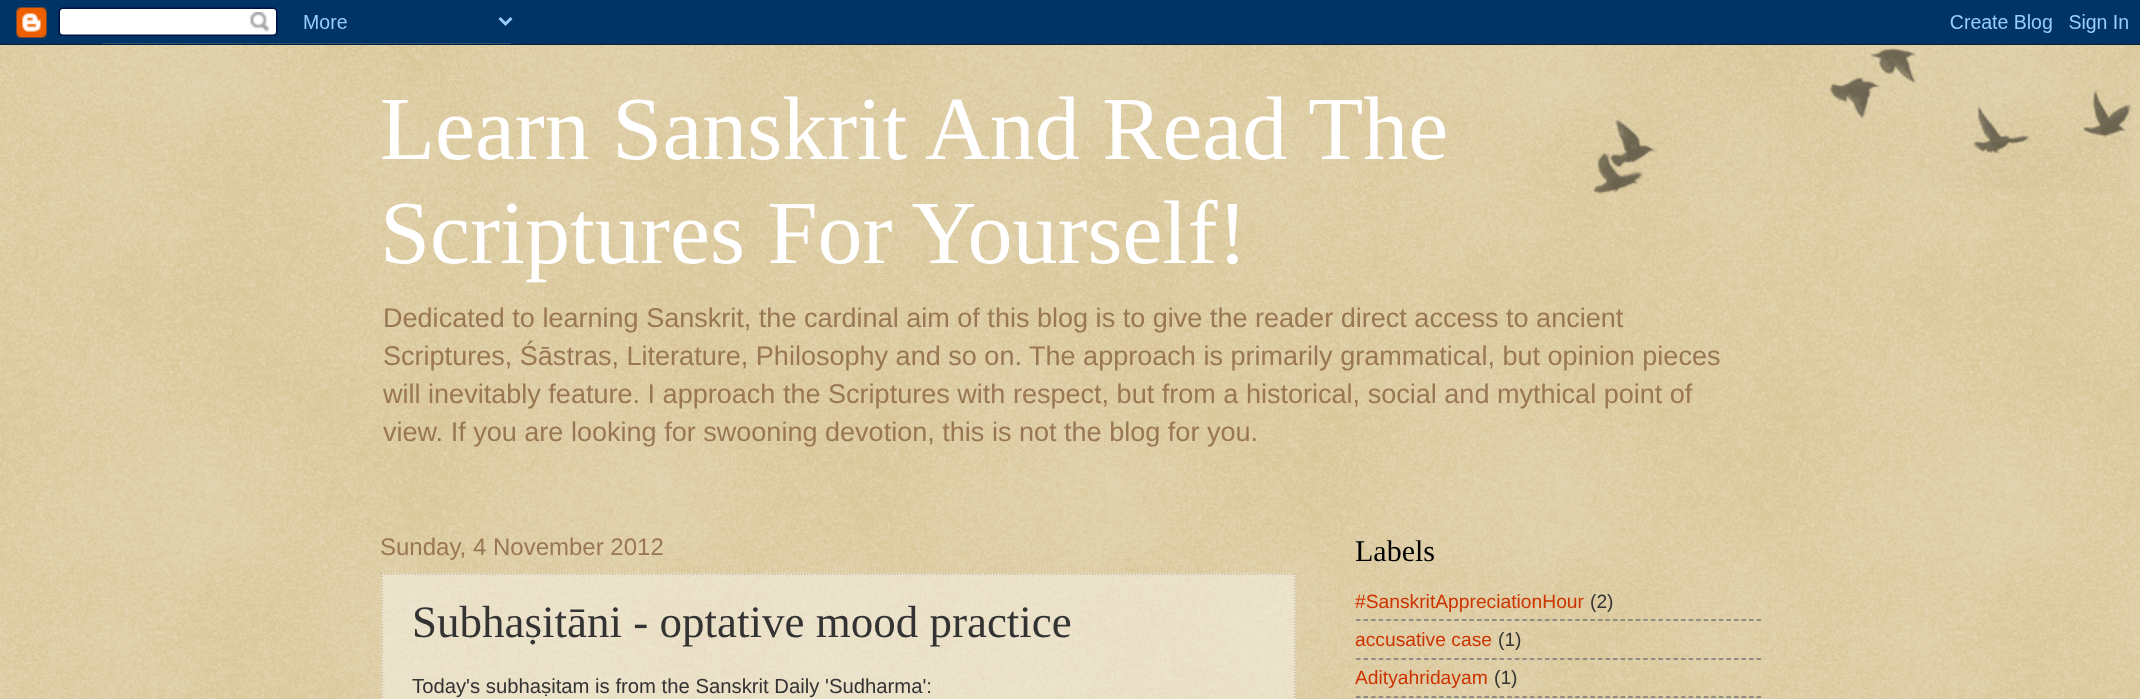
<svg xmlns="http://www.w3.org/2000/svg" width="2140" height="699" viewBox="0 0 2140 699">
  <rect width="100%" height="100%" fill="rgb(192,161,84)"/>
  <image x="0" y="43" width="2140" height="656" href="pic1.png"/>
  <image x="0" y="0" width="2140" height="45" href="pic2.png"/>
  <g font-family="Liberation Serif" font-size="90" fill="rgb(255,255,255)">
    <text>
      <tspan x="380" y="159">Learn Sanskrit And Read The</tspan>
      <tspan x="380" y="263">Scriptures For Yourself!</tspan>
    </text>
  </g>
  <g font-family="Liberation Sans" font-size="27.05" fill="rgb(153,119,85)">
    <text>
      <tspan x="383" y="327">Dedicated to learning Sanskrit, the cardinal aim of this blog is to give the reader direct access to ancient</tspan>
      <tspan x="383" y="365">Scriptures, Śāstras, Literature, Philosophy and so on. The approach is primarily grammatical, but opinion pieces</tspan>
      <tspan x="383" y="403">will inevitably feature. I approach the Scriptures with respect, but from a historical, social and mythical point of</tspan>
      <tspan x="383" y="441">view. If you are looking for swooning devotion, this is not the blog for you.</tspan>
    </text>
  </g>
  <text x="380" y="555" font-family="Liberation Sans" font-size="24" fill="rgb(153,119,85)">Sunday, 4 November 2012</text>
  <rect x="381" y="573" width="915" height="126" fill="rgba(255,255,255,0.4)"/>
  <path d="M381 574H1296" fill="none" stroke="rgb(204,187,153)" stroke-width="1.5" stroke-dasharray="1.5 1.5"/>
  <path d="M1295 573V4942.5" fill="none" stroke="rgb(204,187,153)" stroke-width="1.5" stroke-dasharray="1.5 1.5"/>
  <path d="M382 573V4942.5" fill="none" stroke="rgb(204,187,153)" stroke-width="1.5" stroke-dasharray="1.5 1.5"/>
  <text x="412" y="637" font-family="Liberation Serif" font-size="45" fill="rgb(51,51,51)">Subhaṣitāni - optative mood practice</text>
  <text x="412" y="693" font-family="Liberation Sans" font-size="20.3" fill="rgb(51,51,51)">Today's subhaṣitam is from the Sanskrit Daily 'Sudharma':</text>
  <text x="1355" y="561" font-family="Liberation Serif" font-size="30" fill="rgb(0,0,0)">Labels</text>
  <text x="1355" y="608" font-family="Liberation Sans" font-size="19.25" fill="rgb(204,51,0)">#SanskritAppreciationHour</text>
  <text x="1590" y="608" font-family="Liberation Sans" font-size="19.25" fill="rgb(51,51,51)">(2)</text>
  <path d="M1356 620H1761" fill="none" stroke="rgb(119,119,119)" stroke-width="1.5" stroke-dasharray="4.5 3.06"/>
  <text x="1355" y="646" font-family="Liberation Sans" font-size="19.25" fill="rgb(204,51,0)">accusative case</text>
  <text x="1498" y="646" font-family="Liberation Sans" font-size="19.25" fill="rgb(51,51,51)">(1)</text>
  <path d="M1356 659H1761" fill="none" stroke="rgb(119,119,119)" stroke-width="1.5" stroke-dasharray="4.5 3.06"/>
  <text x="1355" y="684" font-family="Liberation Sans" font-size="19.25" fill="rgb(204,51,0)">Adityahridayam</text>
  <text x="1494" y="684" font-family="Liberation Sans" font-size="19.25" fill="rgb(51,51,51)">(1)</text>
  <path d="M1356 697H1761" fill="none" stroke="rgb(119,119,119)" stroke-width="1.5" stroke-dasharray="4.5 3.06"/>
  <image x="1593" y="48" width="539" height="146" href="pic3.png"/>
</svg>
